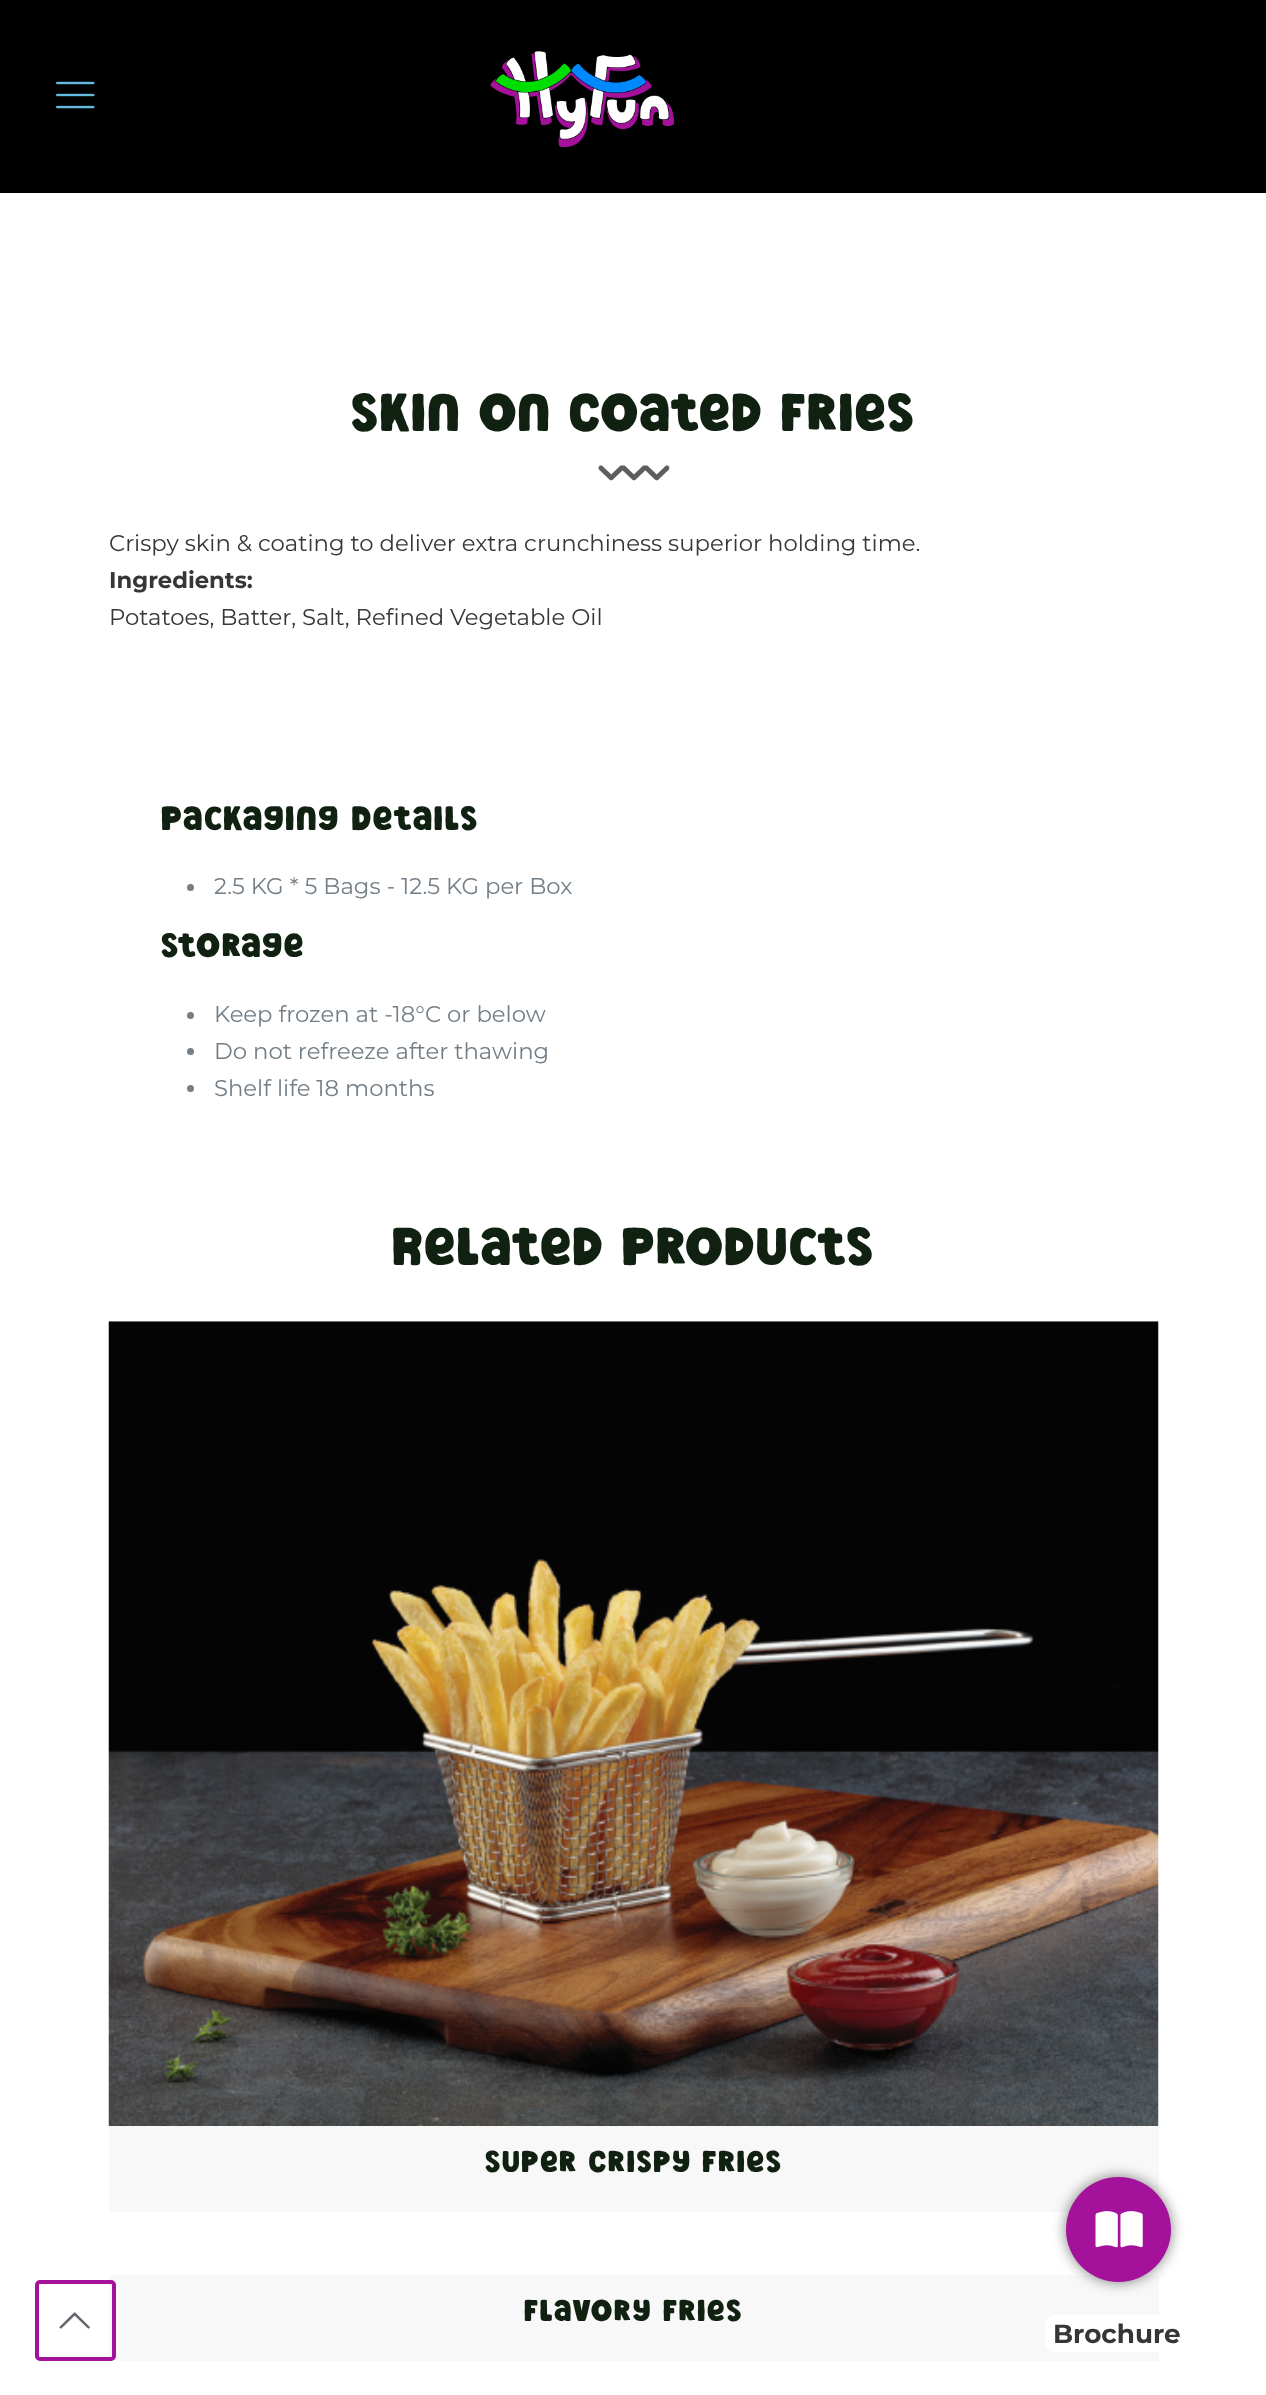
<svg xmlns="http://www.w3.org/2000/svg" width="1266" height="2395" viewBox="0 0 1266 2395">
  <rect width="100%" height="100%" fill="rgb(255,255,255)"/>
  <rect x="109" y="2275" width="1050" height="86" fill="rgb(248,248,248)"/>
  <rect x="37" y="2282" width="77" height="77" rx="3" fill="none" stroke="rgb(164,17,154)" stroke-width="4"/>
  <image x="59" y="2312" width="31" height="17" href="pic1.png"/>
  <rect x="0" y="0" width="1266" height="193" fill="rgb(0,0,0)"/>
  <image x="56" y="81" width="39" height="28" href="pic2.png"/>
  <image x="490" y="51" width="184" height="96" href="pic3.png"/>
  <text x="351" y="431" font-family="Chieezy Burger" font-size="52.5" letter-spacing="1.75" fill="rgb(16,33,17)">Skin on Coated Fries</text>
  <image x="598" y="465" width="25" height="16" href="pic4.png"/>
  <image x="622" y="465" width="24" height="16" href="pic5.png"/>
  <image x="645" y="465" width="25" height="16" href="pic6.png"/>
  <text x="109" y="551" font-family="Montserrat" font-size="22.75" font-weight="100" fill="rgb(54,54,54)">Crispy skin &amp; coating to deliver extra crunchiness superior holding time.</text>
  <text x="109" y="588" font-family="Montserrat" font-size="22.75" font-weight="bold" fill="rgb(54,54,54)">Ingredients:</text>
  <text x="109" y="625" font-family="Montserrat" font-size="22.75" font-weight="100" fill="rgb(54,54,54)">Potatoes, Batter, Salt, Refined Vegetable Oil</text>
  <text x="161" y="830" font-family="Chieezy Burger" font-size="33.25" letter-spacing="1.75" fill="rgb(16,33,17)">Packaging Details</text>
  <circle cx="190.5" cy="887.5" r="3.5" fill="rgb(115,126,134)"/>
  <text x="214" y="894" font-family="Montserrat" font-size="22.75" font-weight="100" fill="rgb(115,126,134)">2.5 KG * 5 Bags - 12.5 KG per Box</text>
  <text x="161" y="957" font-family="Chieezy Burger" font-size="33.25" letter-spacing="1.75" fill="rgb(16,33,17)">Storage</text>
  <circle cx="190.5" cy="1015.5" r="3.5" fill="rgb(115,126,134)"/>
  <text x="214" y="1022" font-family="Montserrat" font-size="22.75" font-weight="100" fill="rgb(115,126,134)">Keep frozen at -18°C or below</text>
  <circle cx="190.5" cy="1051.5" r="3.5" fill="rgb(115,126,134)"/>
  <text x="214" y="1059" font-family="Montserrat" font-size="22.75" font-weight="100" fill="rgb(115,126,134)">Do not refreeze after thawing</text>
  <circle cx="190.5" cy="1088.5" r="3.5" fill="rgb(115,126,134)"/>
  <text x="214" y="1096" font-family="Montserrat" font-size="22.75" font-weight="100" fill="rgb(115,126,134)">Shelf life 18 months</text>
  <text x="392" y="1265" font-family="Chieezy Burger" font-size="52.5" letter-spacing="1.75" fill="rgb(16,33,17)">Related Products</text>
  <image x="108" y="1321" width="1051" height="806" href="pic7.png"/>
  <rect x="109" y="2126" width="1050" height="86" fill="rgb(248,248,248)"/>
  <g font-family="Chieezy Burger" font-size="29.75" letter-spacing="1.75" fill="rgb(16,33,17)">
    <text x="485" y="2172">Super Crispy Fries</text>
    <text x="524" y="2321">Flavory Fries</text>
  </g>
  <rect x="1066" y="2177" width="105" height="105" rx="52.5" fill="rgba(0,0,0,0.5)" filter="blur(7px)"/>
  <circle cx="1118.5" cy="2229.5" r="52.5" fill="rgb(164,17,154)"/>
  <image x="1095" y="2211" width="48" height="37" href="pic8.png"/>
  <rect x="1045" y="2315" width="143" height="37" rx="9" fill="rgb(255,255,255)"/>
  <text x="1053" y="2343" font-family="Montserrat" font-size="26.25" font-weight="bold" fill="rgb(54,54,54)">Brochure</text>
</svg>
